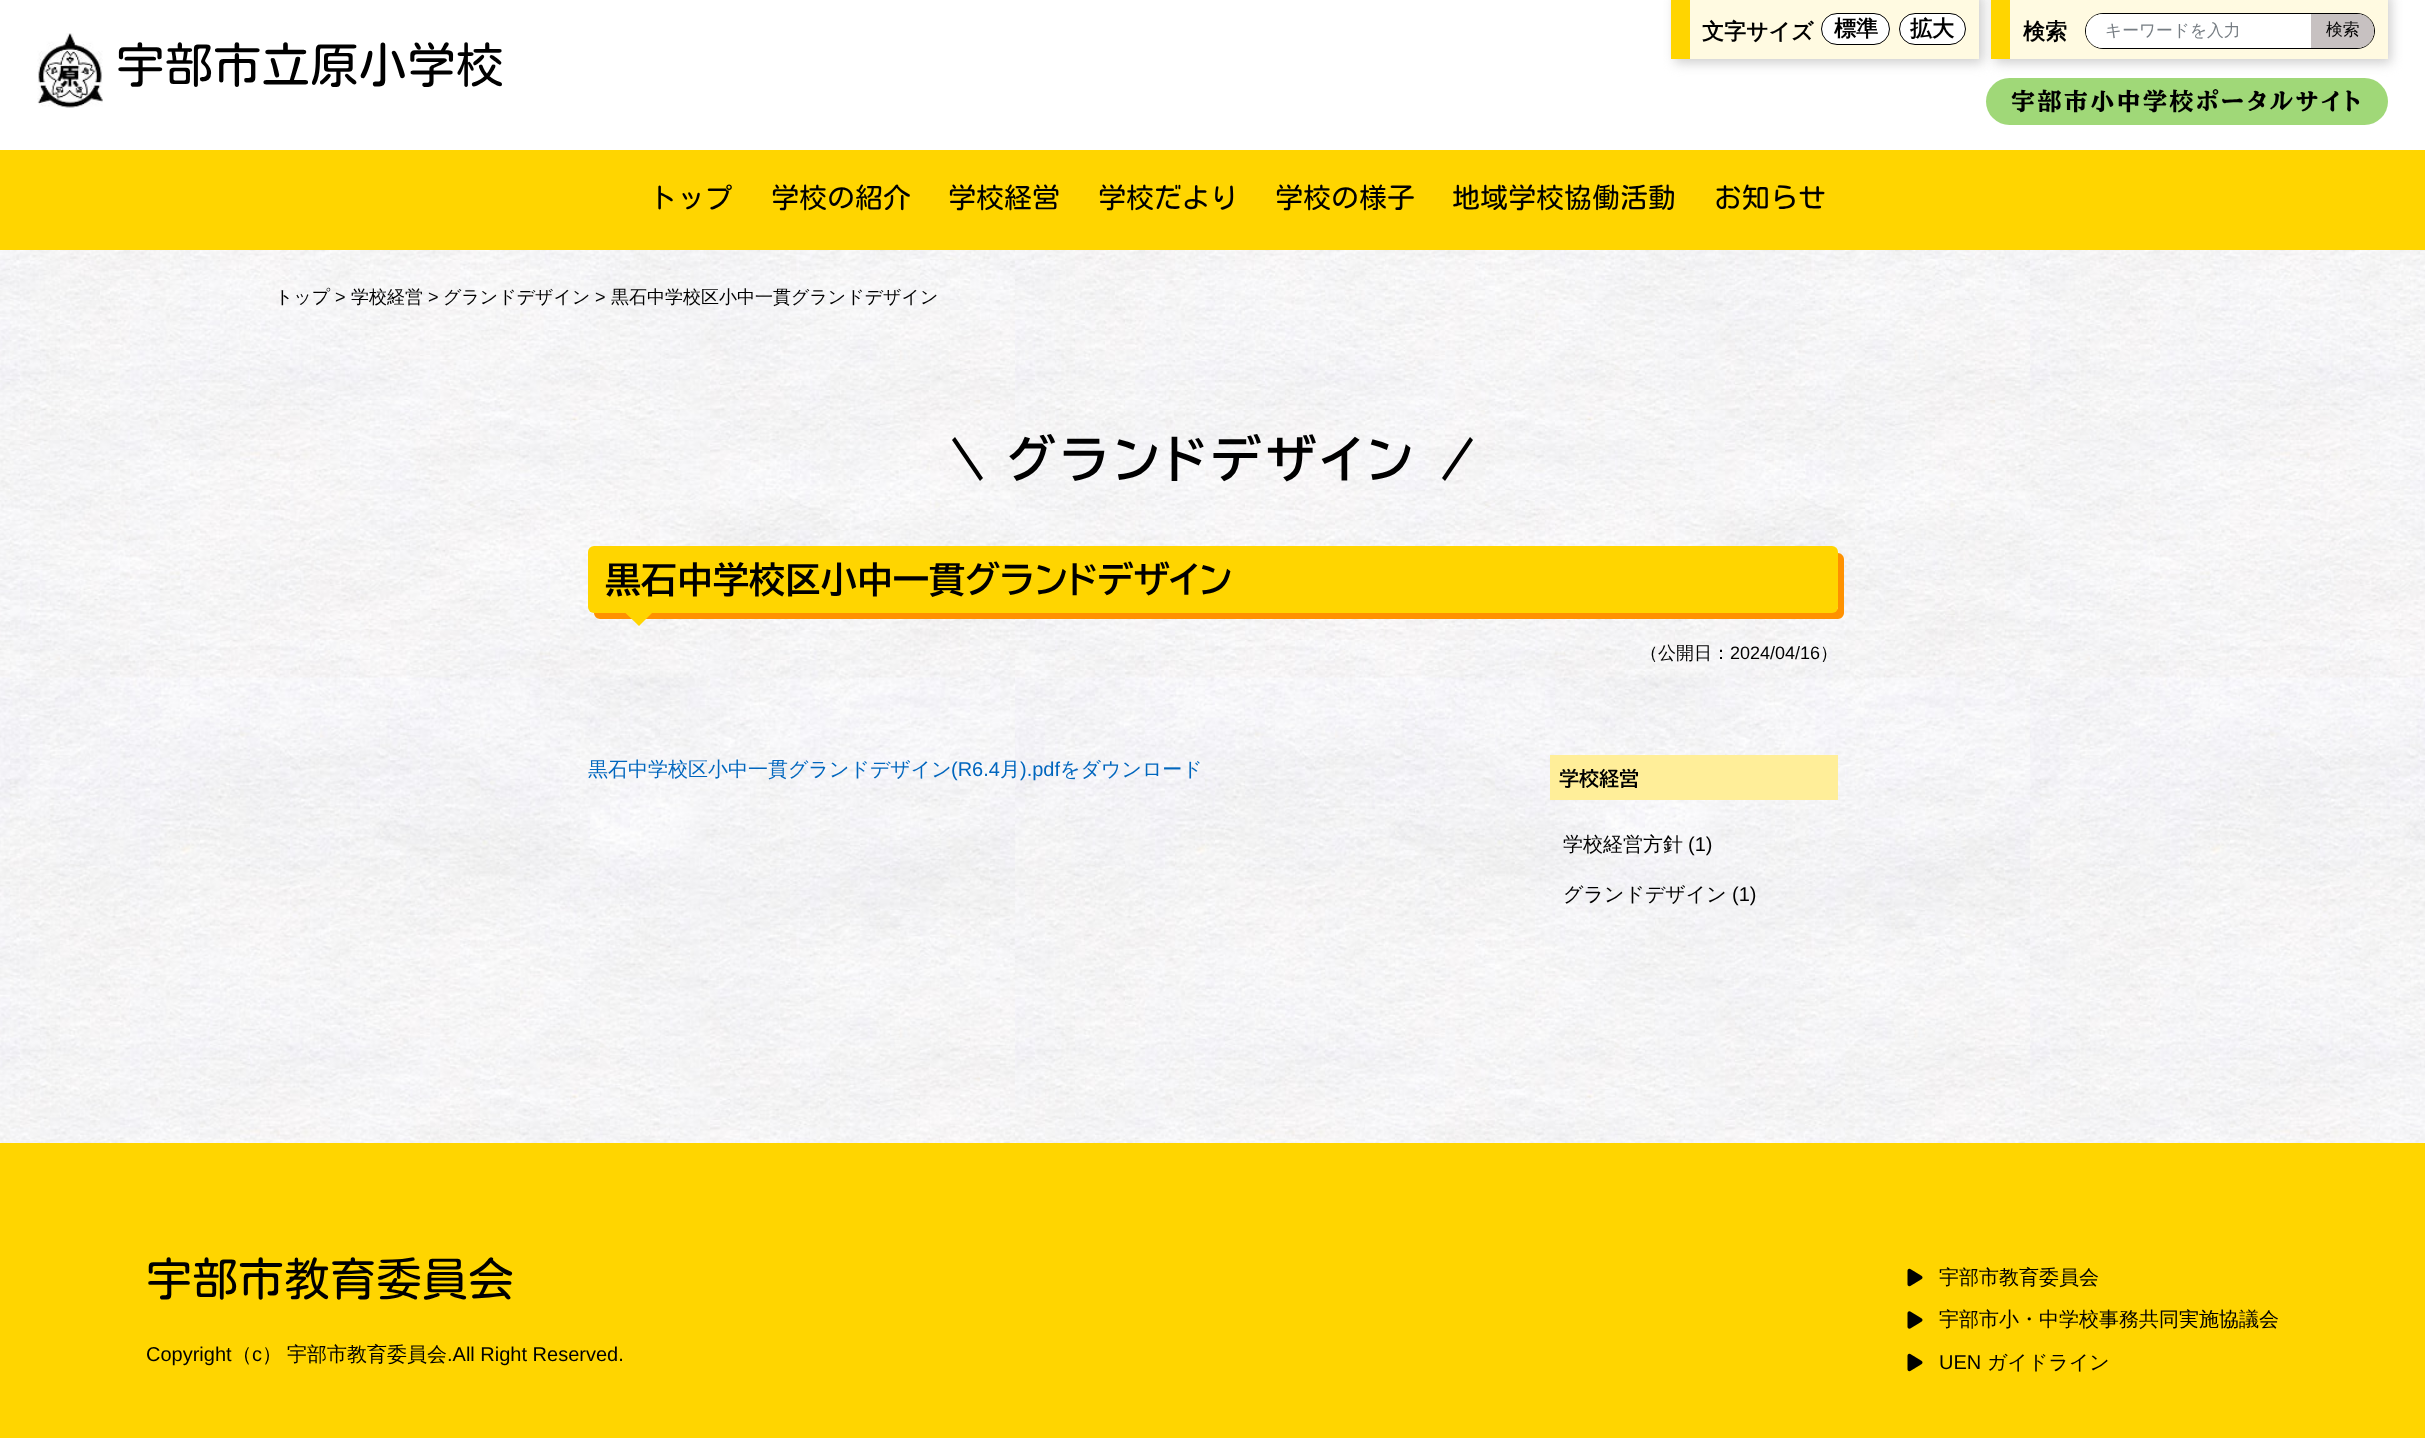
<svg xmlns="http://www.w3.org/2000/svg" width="2425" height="1438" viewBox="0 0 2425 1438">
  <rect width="100%" height="100%" fill="rgb(255,255,255)"/>
  <image x="0" y="250" width="2425" height="893" href="pic1.png"/>
  <image x="37" y="33" width="66" height="75" href="pic2.png"/>
  <text x="116" y="83" font-family="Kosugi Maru" font-size="48.5" fill="rgb(0,0,0)">宇部市立原小学校</text>
  <rect x="1675" y="-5" width="308" height="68" fill="rgb(206,206,206)" filter="blur(6px)"/>
  <rect x="1690" y="0" width="289" height="59" fill="rgb(255,250,225)"/>
  <rect x="1671" y="0" width="19" height="59" fill="rgb(255,213,0)"/>
  <text x="1702" y="39" font-family="WenQuanYi Zen Hei" font-size="22" font-weight="bold" fill="rgb(0,0,0)">文字サイズ</text>
  <rect x="1821.5" y="13.5" width="68" height="31" rx="15.5" fill="rgb(255,255,255)" stroke="rgb(0,0,0)"/>
  <text x="1834" y="36" font-family="WenQuanYi Zen Hei" font-size="22" font-weight="bold" fill="rgb(0,0,0)">標準</text>
  <rect x="1899.5" y="13.5" width="66" height="31" rx="15.5" fill="rgb(255,255,255)" stroke="rgb(0,0,0)"/>
  <text x="1910" y="36" font-family="WenQuanYi Zen Hei" font-size="22" font-weight="bold" fill="rgb(0,0,0)">拡大</text>
  <rect x="1995" y="-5" width="396" height="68" fill="rgb(206,206,206)" filter="blur(6px)"/>
  <rect x="2010" y="0" width="378" height="59" fill="rgb(255,250,225)"/>
  <rect x="1991" y="0" width="19" height="59" fill="rgb(255,213,0)"/>
  <text x="2023" y="39" font-family="WenQuanYi Zen Hei" font-size="22" font-weight="bold" fill="rgb(0,0,0)">検索</text>
  <rect x="2085.5" y="13.5" width="289" height="35" rx="17.5" fill="none" stroke="rgb(0,0,0)"/>
  <path d="M2103 14H2324V48H2103C2093.5 48 2086 40.5 2086 31C2086 21.5 2093.5 14 2103 14Z" fill="rgb(255,255,255)"/>
  <text x="2105" y="36" font-family="WenQuanYi Zen Hei" font-size="16.75" font-weight="500" fill="rgb(118,125,131)">キーワードを入力</text>
  <path d="M2311 14H2357C2366.5 14 2374 21.5 2374 31C2374 40.5 2366.5 48 2357 48H2311Z" fill="rgb(199,193,193)"/>
  <text x="2326" y="35" font-family="WenQuanYi Zen Hei" font-size="16.75" font-weight="500" fill="rgb(0,0,0)">検索</text>
  <rect x="1986" y="78" width="402" height="47" rx="23.5" fill="rgb(160,216,120)"/>
  <text x="2011" y="110" font-family="BIZ UDPMincho" font-size="24" font-weight="bold" letter-spacing="2.4" fill="rgb(0,0,0)">宇部市小中学校ポータルサイト</text>
  <rect x="0" y="150" width="2425" height="100" fill="rgb(255,213,0)"/>
  <g font-family="Kosugi Maru" font-size="28" fill="rgb(0,0,0)">
    <text x="649" y="208">トップ</text>
    <text x="771" y="208">学校の紹介</text>
    <text x="948" y="208">学校経営</text>
    <text x="1098" y="208">学校だより</text>
    <text x="1275" y="208">学校の様子</text>
    <text x="1452" y="208">地域学校協働活動</text>
    <text x="1714" y="208">お知らせ</text>
  </g>
  <text x="275" y="303" font-family="WenQuanYi Zen Hei" font-size="18" font-weight="500" fill="rgb(0,0,0)">トップ</text>
  <text x="335" y="303" font-family="Liberation Sans" font-size="18" fill="rgb(0,0,0)">&gt;</text>
  <text x="351" y="303" font-family="WenQuanYi Zen Hei" font-size="18" font-weight="500" fill="rgb(0,0,0)">学校経営</text>
  <text x="428" y="303" font-family="Liberation Sans" font-size="18" fill="rgb(0,0,0)">&gt;</text>
  <text x="443" y="303" font-family="WenQuanYi Zen Hei" font-size="18" font-weight="500" fill="rgb(0,0,0)">グランドデザイン</text>
  <text x="595" y="303" font-family="Liberation Sans" font-size="18" fill="rgb(0,0,0)">&gt;</text>
  <text x="611" y="303" font-family="WenQuanYi Zen Hei" font-size="18" font-weight="500" fill="rgb(0,0,0)">黒石中学校区小中一貫グランドデザイン</text>
  <path d="M952 440L955 437L983 478L980 481Z" fill="rgb(0,0,0)"/>
  <text x="1007" y="478" font-family="BIZ UDPGothic" font-size="50" font-weight="bold" letter-spacing="5" fill="rgb(0,0,0)">グランドデザイン</text>
  <path d="M1470 437L1473 440L1445 481L1442 478Z" fill="rgb(0,0,0)"/>
  <path d="M594 612V613C594 616 597 619 600 619H1838C1841 619 1844 616 1844 613V559C1844 556 1841 553 1838 553V606C1838 610 1835 612 1831 612Z" fill="rgb(255,145,0)"/>
  <rect x="588" y="546" width="1250" height="67" rx="6" fill="rgb(255,213,0)"/>
  <text x="605" y="593" font-family="BIZ UDPGothic" font-size="36" font-weight="bold" fill="rgb(0,0,0)">黒石中学校区小中一貫グランドデザイン</text>
  <path d="M625 612.5H652.5L639 626Z" fill="rgb(255,213,0)"/>
  <text x="1640" y="659" font-family="WenQuanYi Zen Hei" font-size="18" font-weight="500" fill="rgb(0,0,0)">（公開日：</text>
  <text x="1730" y="659" font-family="Liberation Sans" font-size="18" fill="rgb(0,0,0)">2024/04/16</text>
  <text x="1820" y="659" font-family="WenQuanYi Zen Hei" font-size="18" font-weight="500" fill="rgb(0,0,0)">）</text>
  <text x="588" y="776" font-family="WenQuanYi Zen Hei" font-size="20" font-weight="500" fill="rgb(0,102,190)">黒石中学校区小中一貫グランドデザイン</text>
  <text x="951" y="776" font-family="Liberation Sans" font-size="20" fill="rgb(0,102,190)">(R6.4</text>
  <text x="1000" y="776" font-family="WenQuanYi Zen Hei" font-size="20" font-weight="500" fill="rgb(0,102,190)">月</text>
  <text x="1020" y="776" font-family="Liberation Sans" font-size="20" fill="rgb(0,102,190)">).pdf</text>
  <text x="1060" y="776" font-family="WenQuanYi Zen Hei" font-size="20" font-weight="500" fill="rgb(0,102,190)">をダウンロード</text>
  <rect x="1550" y="755" width="288" height="45" fill="rgb(255,238,153)"/>
  <text x="1559" y="786" font-family="BIZ UDPGothic" font-size="20" font-weight="bold" fill="rgb(0,0,0)">学校経営</text>
  <text x="1563" y="851" font-family="WenQuanYi Zen Hei" font-size="20" font-weight="500" fill="rgb(0,0,0)">学校経営方針</text>
  <text x="1688" y="851" font-family="Liberation Sans" font-size="20" fill="rgb(0,0,0)">(1)</text>
  <text x="1563" y="901" font-family="WenQuanYi Zen Hei" font-size="20" font-weight="500" fill="rgb(0,0,0)">グランドデザイン</text>
  <text x="1732" y="901" font-family="Liberation Sans" font-size="20" fill="rgb(0,0,0)">(1)</text>
  <rect x="0" y="1143" width="2425" height="295" fill="rgb(255,213,0)"/>
  <text x="146" y="1296" font-family="Kosugi Maru" font-size="46" fill="rgb(0,0,0)">宇部市教育委員会</text>
  <text x="146" y="1361" font-family="Liberation Sans" font-size="20" fill="rgb(0,0,0)">Copyright</text>
  <text x="232" y="1361" font-family="WenQuanYi Zen Hei" font-size="20" font-weight="500" fill="rgb(0,0,0)">（</text>
  <text x="252" y="1361" font-family="Liberation Sans" font-size="20" fill="rgb(0,0,0)">c</text>
  <g font-family="WenQuanYi Zen Hei" font-size="20" font-weight="500" fill="rgb(0,0,0)">
    <text x="262" y="1361">）</text>
    <text x="287" y="1361">宇部市教育委員会</text>
  </g>
  <text x="447" y="1361" font-family="Liberation Sans" font-size="20" fill="rgb(0,0,0)">.All Right Reserved.</text>
  <image x="1907" y="1268" width="16" height="19" href="pic3.png"/>
  <text x="1939" y="1284" font-family="WenQuanYi Zen Hei" font-size="20" font-weight="500" fill="rgb(0,0,0)">宇部市教育委員会</text>
  <image x="1907" y="1311" width="16" height="18" href="pic4.png"/>
  <text x="1939" y="1326" font-family="WenQuanYi Zen Hei" font-size="20" font-weight="500" fill="rgb(0,0,0)">宇部市小・中学校事務共同実施協議会</text>
  <image x="1907" y="1353" width="16" height="19" href="pic3.png"/>
  <text x="1939" y="1369" font-family="Liberation Sans" font-size="20" fill="rgb(0,0,0)">UEN</text>
  <text x="1987" y="1369" font-family="WenQuanYi Zen Hei" font-size="20" font-weight="500" fill="rgb(0,0,0)">ガイドライン</text>
</svg>
